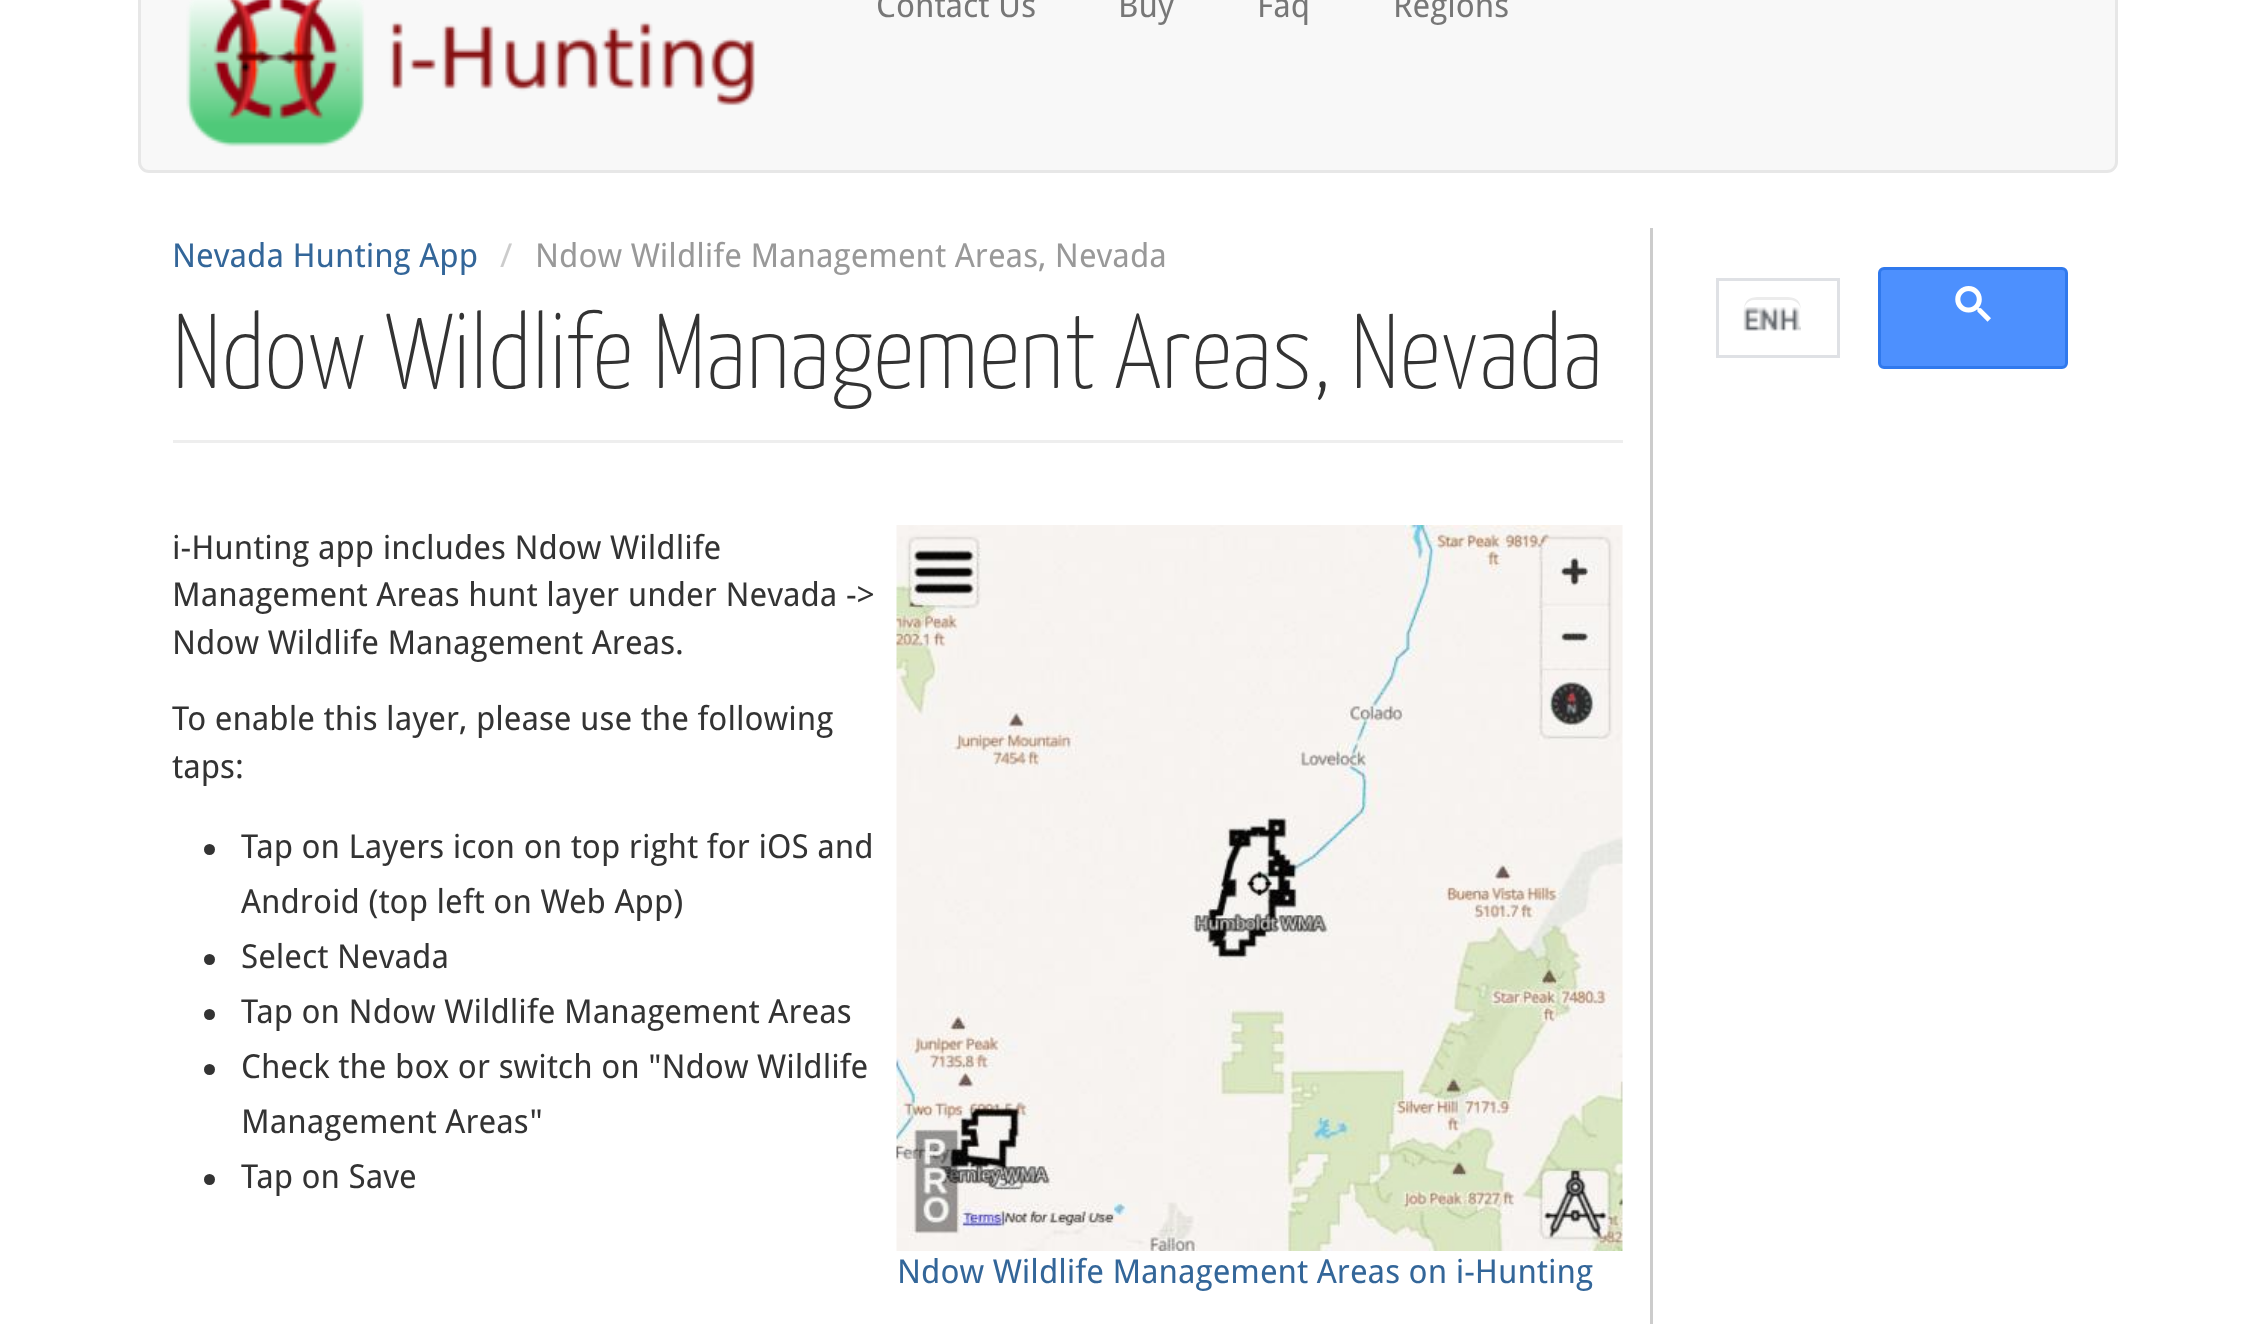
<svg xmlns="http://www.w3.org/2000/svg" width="2252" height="1324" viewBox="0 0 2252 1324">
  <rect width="100%" height="100%" fill="rgb(255,255,255)"/>
  <rect x="139.5" y="-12.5" width="1977" height="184" rx="9.5" fill="rgb(248,248,248)" stroke="rgb(231,231,231)" stroke-width="3"/>
  <image x="186" y="0" width="569" height="147" href="pic1.png"/>
  <g font-family="Droid Sans" font-size="33" fill="rgb(119,119,119)">
    <text x="876" y="17">Contact Us</text>
    <text x="1118" y="17">Buy</text>
    <text x="1257" y="17">Faq</text>
    <text x="1393" y="17">Regions</text>
  </g>
  <rect x="1650" y="228" width="3" height="1096" fill="rgb(204,204,204)"/>
  <text x="172" y="267" font-family="Droid Sans" font-size="33" fill="rgb(51,102,153)">Nevada Hunting App</text>
  <text x="500" y="267" font-family="Droid Sans" font-size="33" fill="rgb(204,204,204)">/</text>
  <text x="535" y="267" font-family="Droid Sans" font-size="33" fill="rgb(153,153,153)">Ndow Wildlife Management Areas, Nevada</text>
  <rect x="173" y="440" width="1450" height="3" fill="rgb(238,238,238)"/>
  <text x="172" y="388" font-family="Yanone Kaffeesatz" font-size="105.9" font-weight="100" fill="rgb(51,51,51)">Ndow Wildlife Management Areas, Nevada</text>
  <g font-family="Droid Sans" font-size="33" fill="rgb(51,51,51)">
    <text>
      <tspan x="172" y="559">i-Hunting app includes Ndow Wildlife</tspan>
      <tspan x="172" y="606">Management Areas hunt layer under Nevada -&gt;</tspan>
      <tspan x="172" y="654">Ndow Wildlife Management Areas.</tspan>
    </text>
    <text>
      <tspan x="172" y="730">To enable this layer, please use the following</tspan>
      <tspan x="172" y="778">taps:</tspan>
    </text>
  </g>
  <circle cx="209.5" cy="849.5" r="5.5" fill="rgb(51,51,51)"/>
  <g font-family="Droid Sans" font-size="33" fill="rgb(51,51,51)">
    <text>
      <tspan x="241" y="858">Tap on Layers icon on top right for iOS and</tspan>
      <tspan x="241" y="913">Android (top left on Web App)</tspan>
    </text>
  </g>
  <circle cx="209.5" cy="959.5" r="5.5" fill="rgb(51,51,51)"/>
  <text x="241" y="968" font-family="Droid Sans" font-size="33" fill="rgb(51,51,51)">Select Nevada</text>
  <circle cx="209.5" cy="1014.5" r="5.5" fill="rgb(51,51,51)"/>
  <text x="241" y="1023" font-family="Droid Sans" font-size="33" fill="rgb(51,51,51)">Tap on Ndow Wildlife Management Areas</text>
  <circle cx="209.5" cy="1069.5" r="5.5" fill="rgb(51,51,51)"/>
  <g font-family="Droid Sans" font-size="33" fill="rgb(51,51,51)">
    <text>
      <tspan x="241" y="1078">Check the box or switch on "Ndow Wildlife</tspan>
      <tspan x="241" y="1133">Management Areas"</tspan>
    </text>
  </g>
  <circle cx="209.5" cy="1179.5" r="5.5" fill="rgb(51,51,51)"/>
  <text x="241" y="1188" font-family="Droid Sans" font-size="33" fill="rgb(51,51,51)">Tap on Save</text>
  <image x="896" y="525" width="727" height="726" href="pic2.png"/>
  <text x="897" y="1283" font-family="Droid Sans" font-size="33" fill="rgb(51,102,153)">Ndow Wildlife Management Areas on i-Hunting</text>
  <rect x="1717.5" y="279.5" width="121" height="77" fill="none" stroke="rgb(223,225,229)" stroke-width="3"/>
  <image x="1743" y="307" width="58" height="24" href="pic3.png"/>
  <path d="M1754 300H1790C1796 300 1801 305 1801 311C1801 299 1795 297 1784 297H1761C1750 297 1744 299 1744 311C1744 305 1748 300 1754 300Z" fill="rgb(236,236,236)"/>
  <rect x="1879.5" y="268.5" width="187" height="99" rx="4.5" fill="rgb(77,144,254)" stroke="rgb(48,121,237)" stroke-width="3"/>
  <image x="1955" y="286" width="36" height="36" href="pic4.png"/>
</svg>
